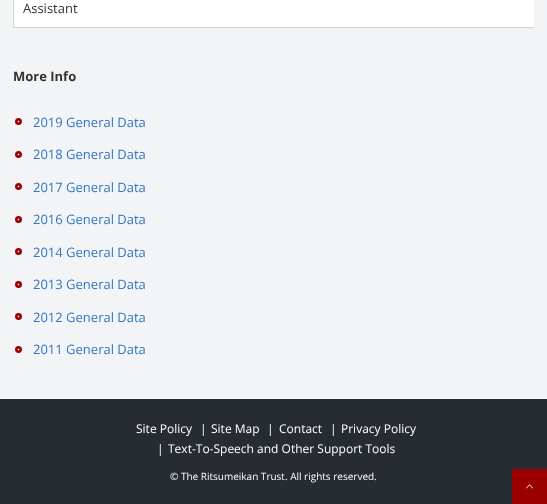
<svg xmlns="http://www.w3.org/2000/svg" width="547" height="504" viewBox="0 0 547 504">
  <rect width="100%" height="100%" fill="rgb(242,244,246)"/>
  <rect x="14" y="0" width="520" height="27" fill="rgb(255,255,255)"/>
  <rect x="13" y="27" width="521" height="1" fill="rgb(209,213,216)"/>
  <rect x="13" y="0" width="1" height="28" fill="rgb(209,213,216)"/>
  <text x="23" y="13" font-family="Open Sans" font-size="13" fill="rgb(51,51,51)">Assistant</text>
  <text x="13" y="81" font-family="Open Sans" font-size="13" font-weight="bold" fill="rgb(51,51,51)">More Info</text>
  <rect x="15" y="118" width="7" height="7" fill="rgb(226,230,233)"/>
  <image x="15" y="118" width="7" height="7" href="pic1.png"/>
  <text x="33" y="127" font-family="Open Sans" font-size="13" fill="rgb(49,119,197)">2019 General Data</text>
  <rect x="15" y="151" width="7" height="7" fill="rgb(226,230,233)"/>
  <image x="15" y="151" width="7" height="7" href="pic1.png"/>
  <text x="33" y="159" font-family="Open Sans" font-size="13" fill="rgb(49,119,197)">2018 General Data</text>
  <rect x="15" y="183" width="7" height="7" fill="rgb(226,230,233)"/>
  <image x="15" y="183" width="7" height="7" href="pic1.png"/>
  <text x="33" y="192" font-family="Open Sans" font-size="13" fill="rgb(49,119,197)">2017 General Data</text>
  <rect x="15" y="216" width="7" height="7" fill="rgb(226,230,233)"/>
  <image x="15" y="216" width="7" height="7" href="pic1.png"/>
  <text x="33" y="224" font-family="Open Sans" font-size="13" fill="rgb(49,119,197)">2016 General Data</text>
  <rect x="15" y="248" width="7" height="7" fill="rgb(226,230,233)"/>
  <image x="15" y="248" width="7" height="7" href="pic1.png"/>
  <text x="33" y="257" font-family="Open Sans" font-size="13" fill="rgb(49,119,197)">2014 General Data</text>
  <rect x="15" y="281" width="7" height="7" fill="rgb(226,230,233)"/>
  <image x="15" y="281" width="7" height="7" href="pic1.png"/>
  <text x="33" y="289" font-family="Open Sans" font-size="13" fill="rgb(49,119,197)">2013 General Data</text>
  <rect x="15" y="313" width="7" height="7" fill="rgb(226,230,233)"/>
  <image x="15" y="313" width="7" height="7" href="pic1.png"/>
  <text x="33" y="322" font-family="Open Sans" font-size="13" fill="rgb(49,119,197)">2012 General Data</text>
  <rect x="15" y="346" width="7" height="7" fill="rgb(226,230,233)"/>
  <image x="15" y="346" width="7" height="7" href="pic1.png"/>
  <text x="33" y="354" font-family="Open Sans" font-size="13" fill="rgb(49,119,197)">2011 General Data</text>
  <rect x="0" y="399" width="547" height="105" fill="rgb(39,44,50)"/>
  <image x="512" y="469" width="35" height="35" href="pic2.png"/>
  <g font-family="Open Sans" font-size="12" fill="rgb(255,255,255)">
    <text x="136" y="433">Site Policy</text>
    <text x="200" y="433">|</text>
    <text x="211" y="433">Site Map</text>
    <text x="267" y="433">|</text>
    <text x="279" y="433">Contact</text>
    <text x="330" y="433">|</text>
    <text x="341" y="433">Privacy Policy</text>
    <text x="157" y="453">|</text>
    <text x="168" y="453">Text-To-Speech and Other Support Tools</text>
  </g>
  <text x="170" y="480" font-family="Open Sans" font-size="10" fill="rgb(255,255,255)">© The Ritsumeikan Trust. All rights reserved.</text>
</svg>
